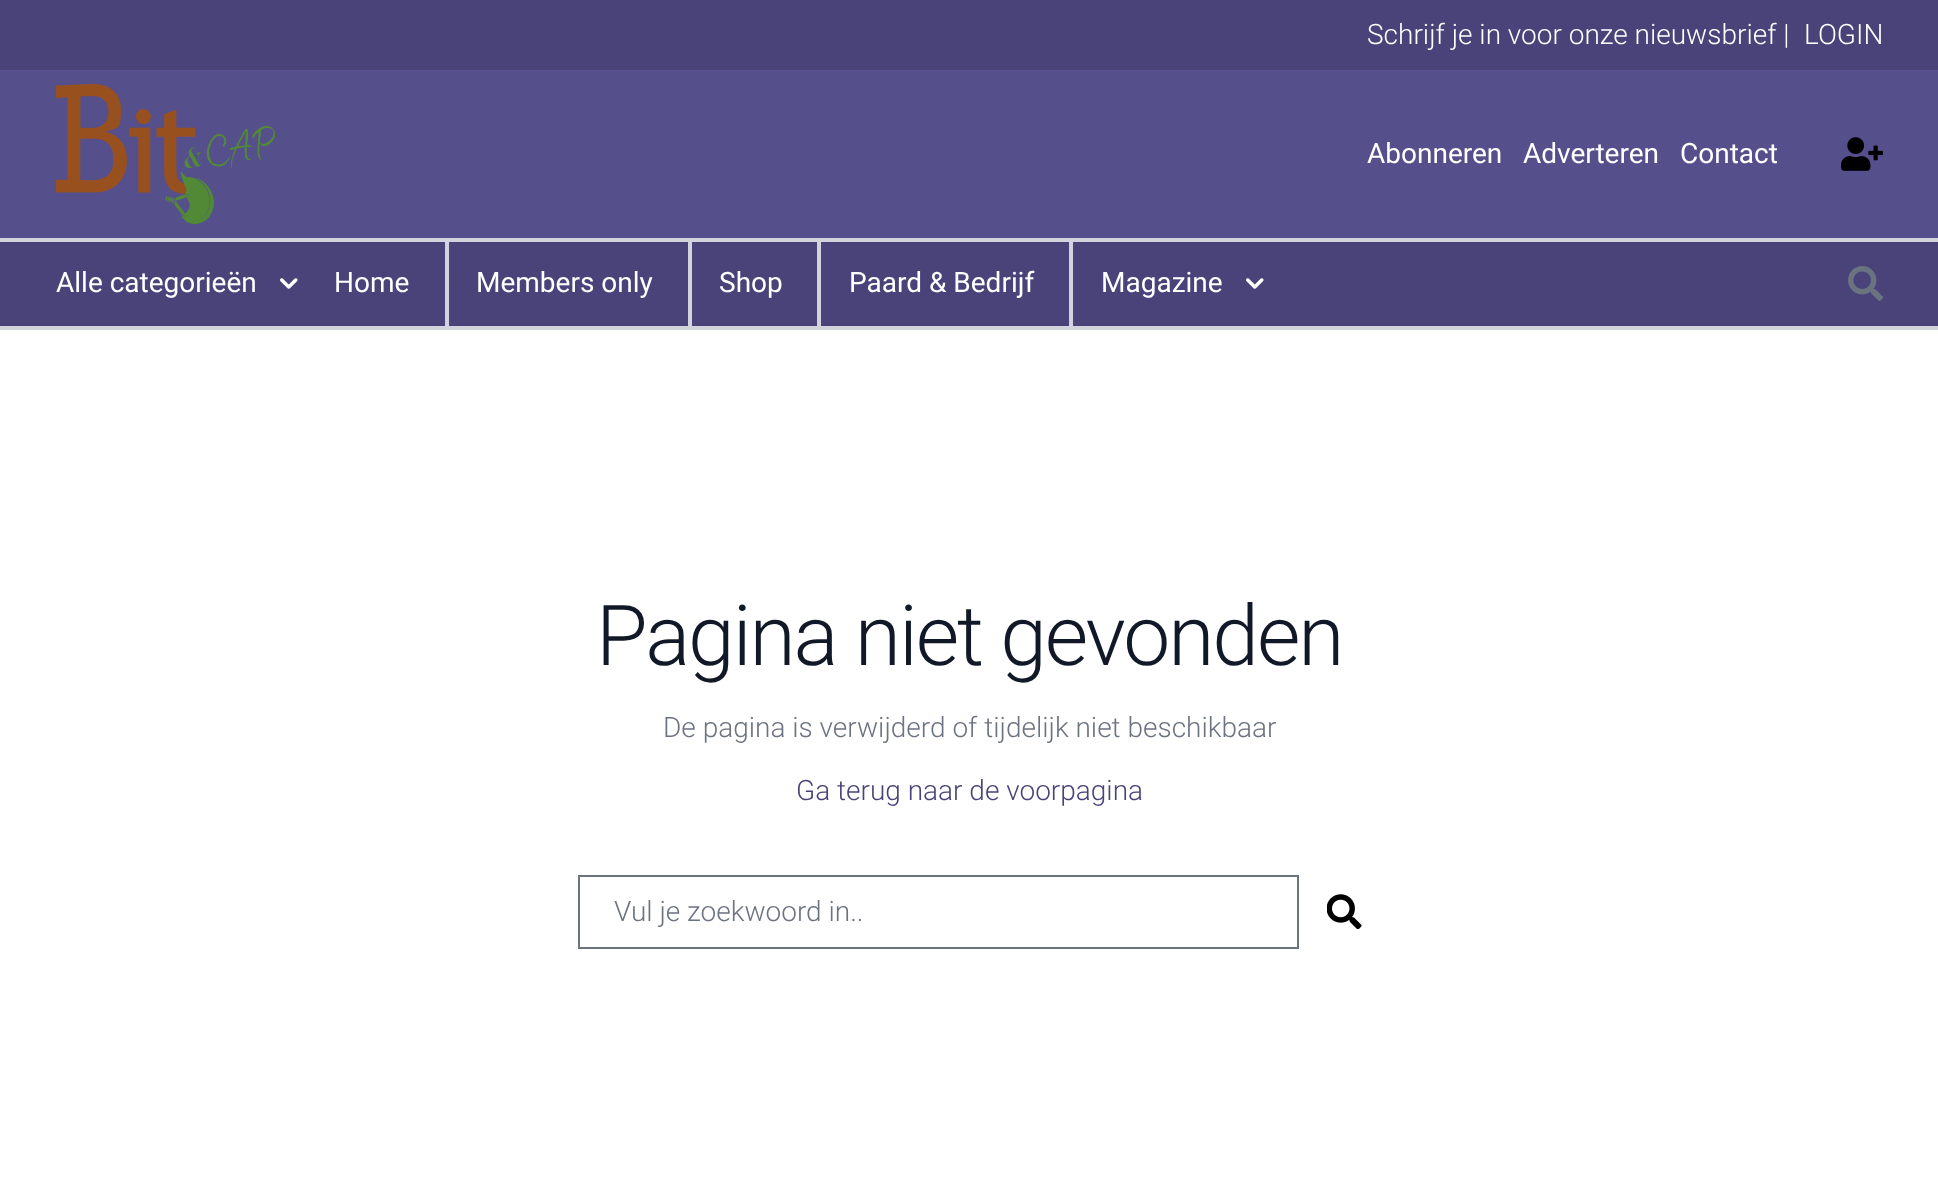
<svg xmlns="http://www.w3.org/2000/svg" width="1938" height="1197" viewBox="0 0 1938 1197">
  <rect width="100%" height="100%" fill="rgb(255,255,255)"/>
  <rect x="0" y="0" width="1938" height="70" fill="rgb(73,67,121)"/>
  <g font-family="Roboto" font-size="28" font-weight="300" fill="rgb(255,255,255)">
    <text x="1367" y="44">Schrijf je in voor onze nieuwsbrief |</text>
    <text x="1804" y="44">LOGIN</text>
  </g>
  <rect x="0" y="70" width="1938" height="168" fill="rgb(85,79,140)"/>
  <image x="56" y="84" width="219" height="140" href="pic1.png"/>
  <g font-family="Roboto" font-size="28" fill="rgb(255,255,255)">
    <text x="1367" y="163">Abonneren</text>
    <text x="1523" y="163">Adverteren</text>
    <text x="1680" y="163">Contact</text>
  </g>
  <image x="1841" y="137" width="42" height="34" href="pic2.png"/>
  <rect x="0" y="242" width="1938" height="84" fill="rgb(73,67,121)"/>
  <rect x="0" y="238" width="1938" height="4" fill="rgb(209,213,219)"/>
  <rect x="0" y="326" width="1938" height="4" fill="rgb(209,213,219)"/>
  <text x="56" y="292" font-family="Roboto" font-size="28" fill="rgb(255,255,255)">Alle categorieën</text>
  <image x="280" y="278" width="18" height="11" href="pic3.png"/>
  <rect x="445" y="242" width="4" height="84" fill="rgb(209,213,219)"/>
  <text x="334" y="292" font-family="Roboto" font-size="28" fill="rgb(255,255,255)">Home</text>
  <rect x="688" y="242" width="4" height="84" fill="rgb(209,213,219)"/>
  <text x="476" y="292" font-family="Roboto" font-size="28" fill="rgb(255,255,255)">Members only</text>
  <rect x="817" y="242" width="4" height="84" fill="rgb(209,213,219)"/>
  <text x="719" y="292" font-family="Roboto" font-size="28" fill="rgb(255,255,255)">Shop</text>
  <rect x="1069" y="242" width="4" height="84" fill="rgb(209,213,219)"/>
  <g font-family="Roboto" font-size="28" fill="rgb(255,255,255)">
    <text x="849" y="292">Paard &amp; Bedrijf</text>
    <text x="1101" y="292">Magazine</text>
  </g>
  <image x="1246" y="278" width="18" height="11" href="pic3.png"/>
  <image x="1848" y="266" width="35" height="35" href="pic4.png"/>
  <text x="596" y="665" font-family="Roboto" font-size="84" font-weight="300" letter-spacing="-2.1" fill="rgb(17,24,39)">Pagina niet gevonden</text>
  <text x="663" y="737" font-family="Roboto" font-size="28" font-weight="300" fill="rgb(107,114,128)">De pagina is verwijderd of tijdelijk niet beschikbaar</text>
  <text x="796" y="800" font-family="Roboto" font-size="28" font-weight="300" fill="rgb(73,67,121)">Ga terug naar de voorpagina</text>
  <rect x="579" y="876" width="719" height="72" fill="none" stroke="rgb(107,114,128)" stroke-width="2"/>
  <text x="614" y="921" font-family="Roboto" font-size="28" font-weight="300" fill="rgb(107,114,128)">Vul je zoekwoord in..</text>
  <image x="1327" y="894" width="35" height="35" href="pic5.png"/>
</svg>
